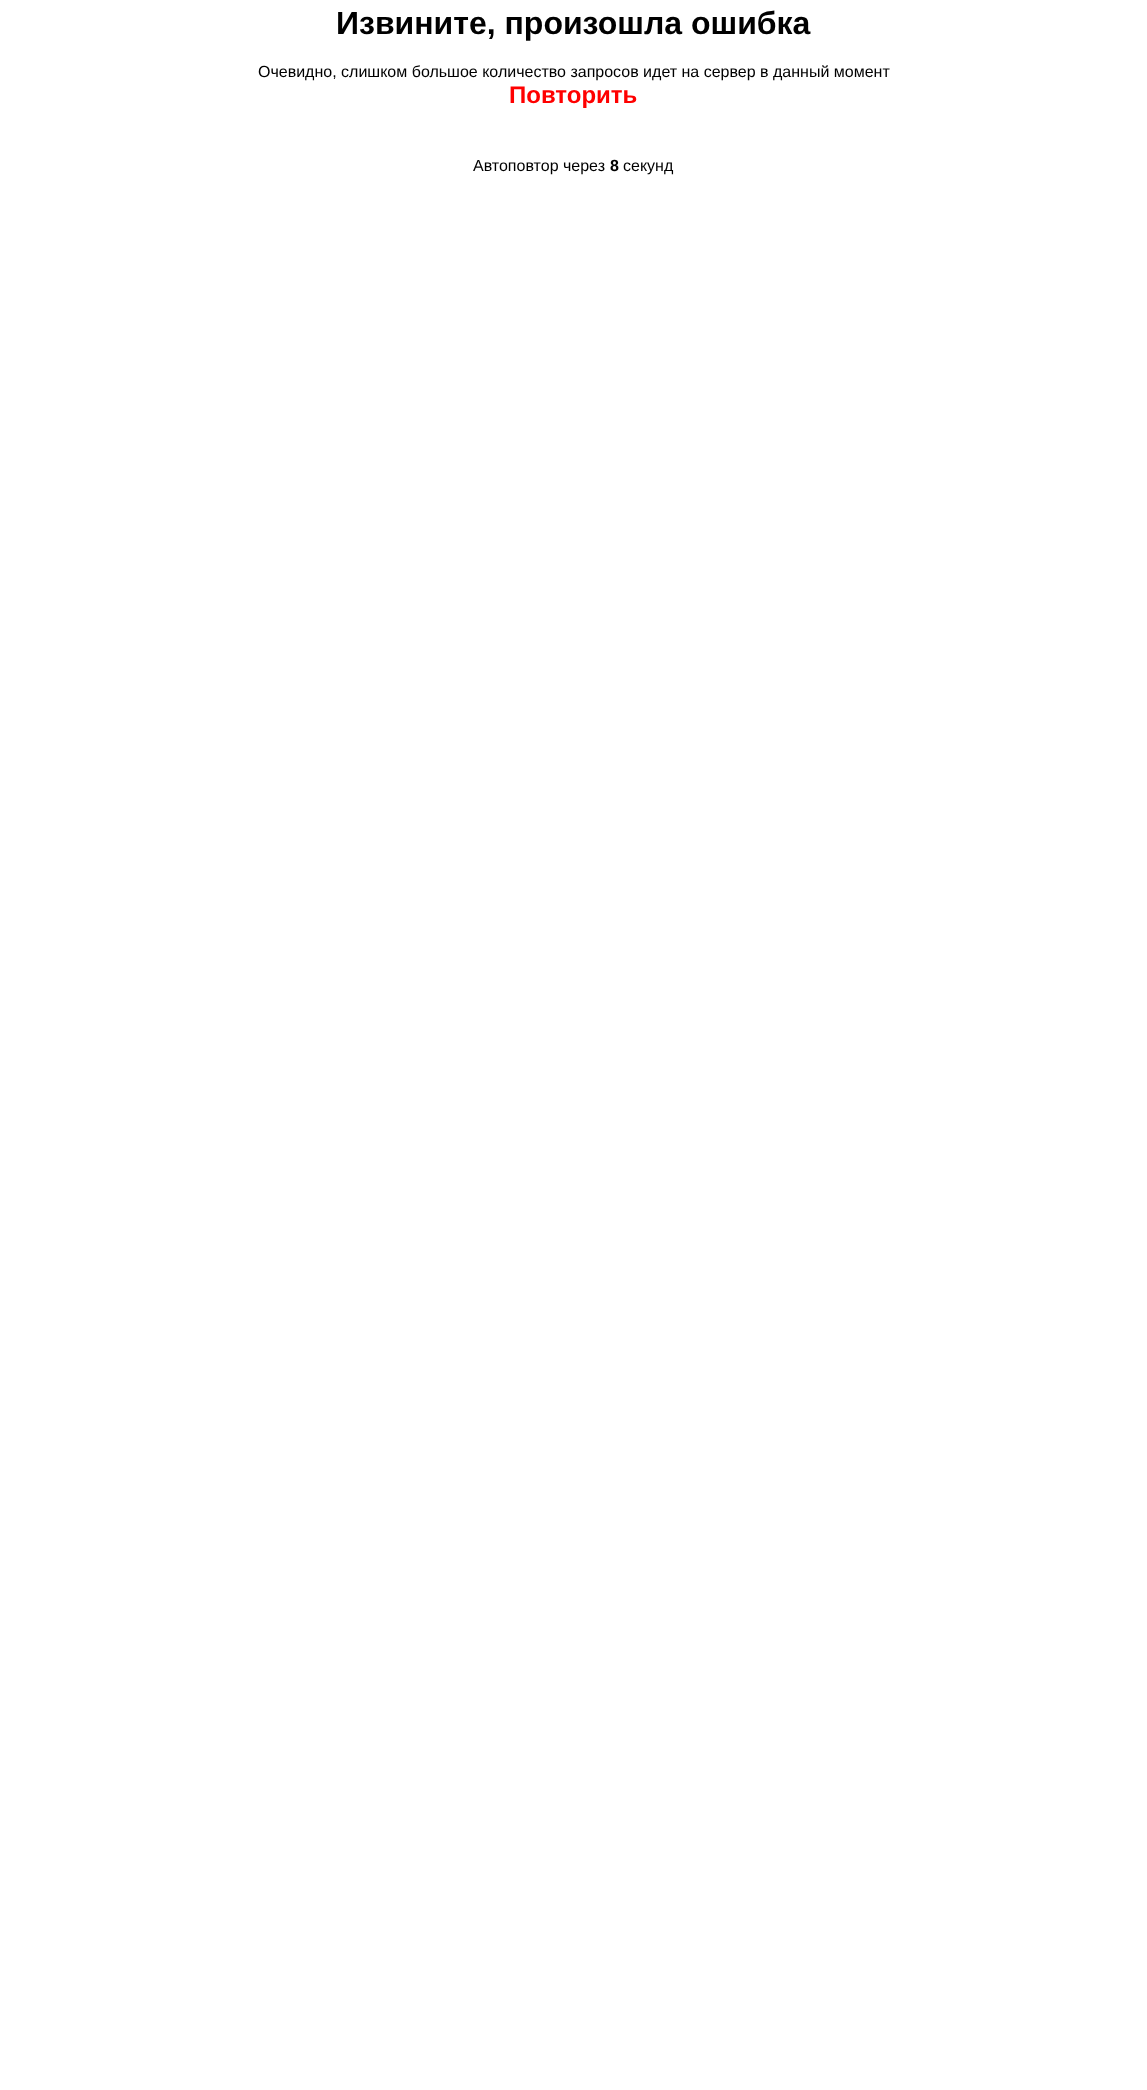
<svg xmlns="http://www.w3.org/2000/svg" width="1147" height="2090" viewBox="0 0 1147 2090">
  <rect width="100%" height="100%" fill="rgb(255,255,255)"/>
  <text x="336" y="34" font-family="Liberation Sans" font-size="32" font-weight="bold" fill="rgb(0,0,0)">Извините, произошла ошибка</text>
  <text x="258" y="77" font-family="Liberation Sans" font-size="16" fill="rgb(0,0,0)">Очевидно, слишком большое количество запросов идет на сервер в данный момент</text>
  <text x="509" y="103" font-family="Liberation Sans" font-size="24" font-weight="bold" fill="rgb(255,0,0)">Повторить</text>
  <text x="473" y="171" font-family="Liberation Sans" font-size="16" fill="rgb(0,0,0)">Автоповтор через</text>
  <text x="610" y="171" font-family="Liberation Sans" font-size="16" font-weight="bold" fill="rgb(0,0,0)">8</text>
  <text x="623" y="171" font-family="Liberation Sans" font-size="16" fill="rgb(0,0,0)">секунд</text>
</svg>
